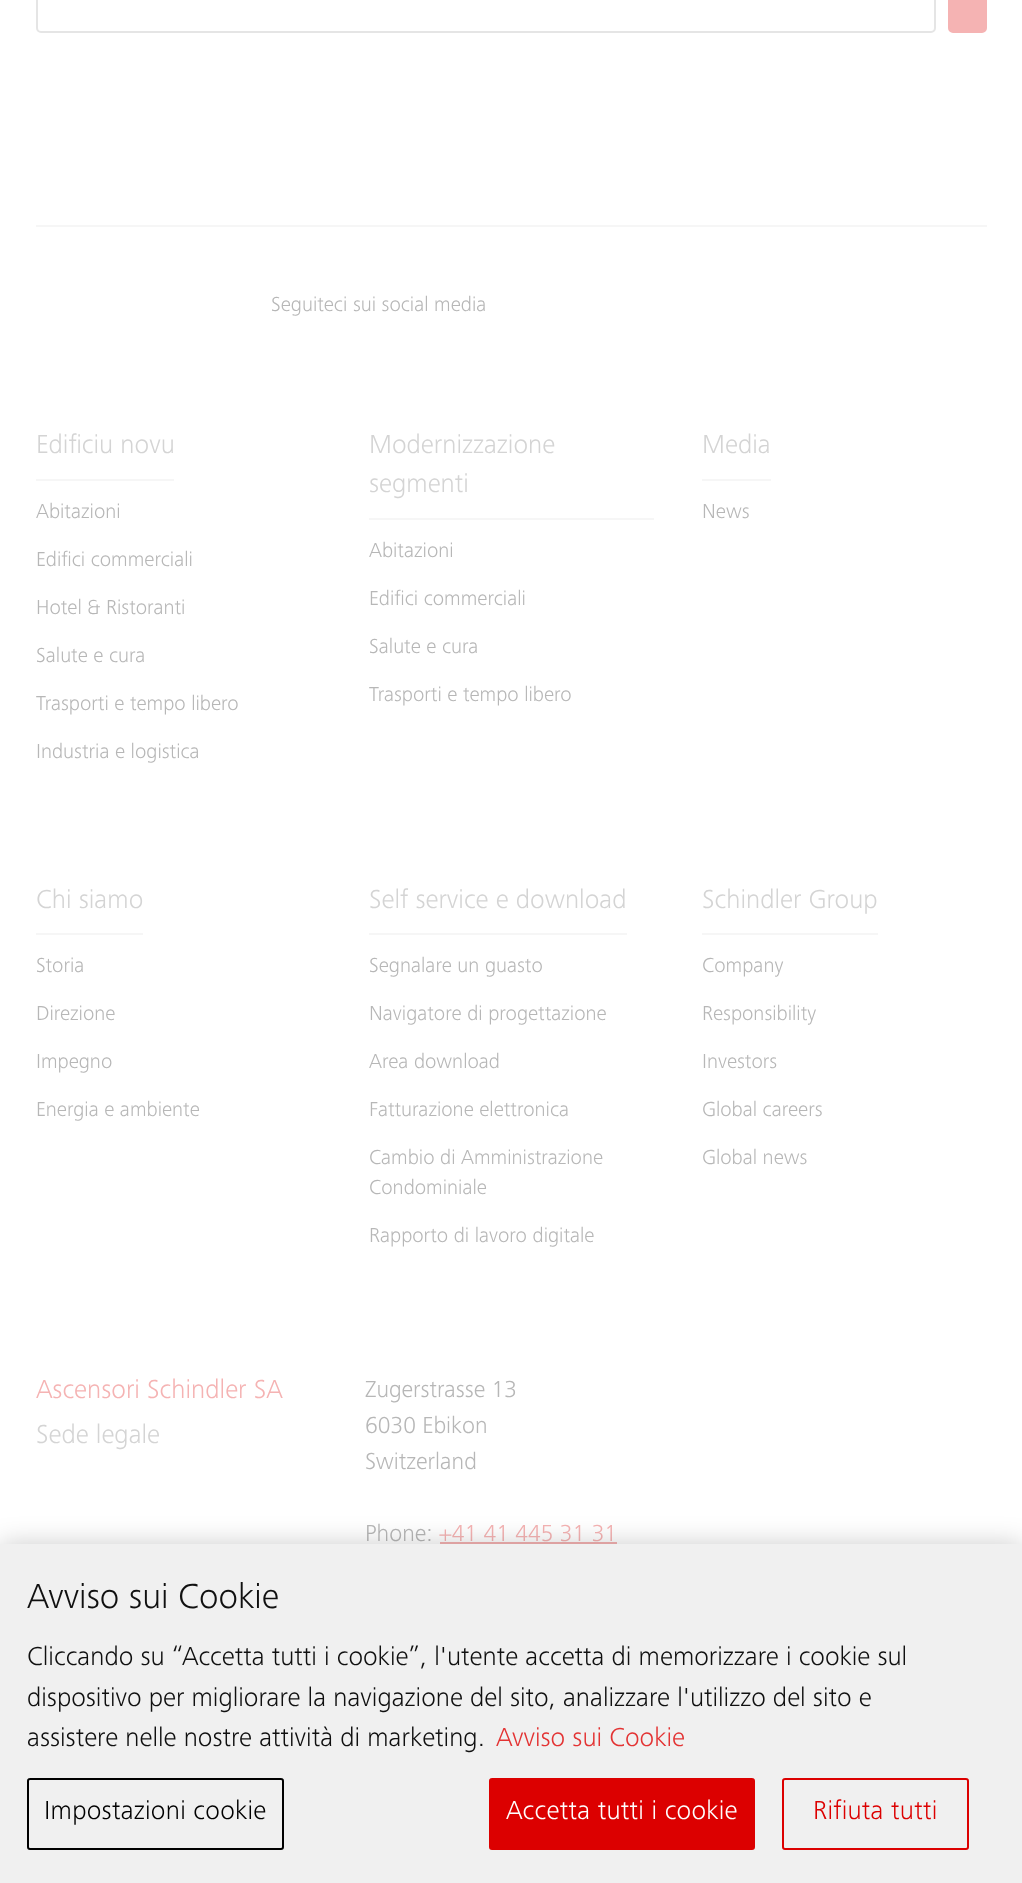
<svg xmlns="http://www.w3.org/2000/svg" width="1022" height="1883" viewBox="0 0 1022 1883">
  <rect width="100%" height="100%" fill="rgb(255,255,255)"/>
  <rect x="37" y="-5" width="898" height="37" rx="4" fill="none" stroke="rgb(229,229,229)" stroke-width="2"/>
  <rect x="949" y="-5" width="37" height="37" rx="4" fill="rgb(245,179,179)" stroke="rgb(245,179,179)" stroke-width="2"/>
  <rect x="36" y="225" width="951" height="2" fill="rgb(246,246,246)"/>
  <text x="271" y="311" font-family="'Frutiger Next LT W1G'" font-size="21" font-weight="300" fill="rgb(183,183,183)">Seguiteci sui social media</text>
  <rect x="36" y="479" width="138" height="2" fill="rgb(246,246,246)"/>
  <text x="36" y="453" font-family="'Frutiger Next LT W1G'" font-size="27" font-weight="300" fill="rgb(212,212,212)">Edificiu novu</text>
  <g font-family="'Frutiger Next LT W1G'" font-size="21" font-weight="300" fill="rgb(183,183,183)">
    <text x="36" y="518">Abitazioni</text>
    <text x="36" y="566">Edifici commerciali</text>
    <text x="36" y="614">Hotel &amp; Ristoranti</text>
    <text x="36" y="662">Salute e cura</text>
    <text x="36" y="710">Trasporti e tempo libero</text>
    <text x="36" y="758">Industria e logistica</text>
  </g>
  <rect x="369" y="518" width="285" height="2" fill="rgb(246,246,246)"/>
  <g font-family="'Frutiger Next LT W1G'" font-size="27" font-weight="300" fill="rgb(212,212,212)">
    <text>
      <tspan x="369" y="453">Modernizzazione</tspan>
      <tspan x="369" y="492">segmenti</tspan>
    </text>
  </g>
  <g font-family="'Frutiger Next LT W1G'" font-size="21" font-weight="300" fill="rgb(183,183,183)">
    <text x="369" y="557">Abitazioni</text>
    <text x="369" y="605">Edifici commerciali</text>
    <text x="369" y="653">Salute e cura</text>
    <text x="369" y="701">Trasporti e tempo libero</text>
  </g>
  <rect x="702" y="479" width="69" height="2" fill="rgb(246,246,246)"/>
  <text x="702" y="453" font-family="'Frutiger Next LT W1G'" font-size="27" font-weight="300" fill="rgb(212,212,212)">Media</text>
  <text x="702" y="518" font-family="'Frutiger Next LT W1G'" font-size="21" font-weight="300" fill="rgb(183,183,183)">News</text>
  <rect x="36" y="933" width="107" height="2" fill="rgb(246,246,246)"/>
  <text x="36" y="908" font-family="'Frutiger Next LT W1G'" font-size="27" font-weight="300" fill="rgb(212,212,212)">Chi siamo</text>
  <g font-family="'Frutiger Next LT W1G'" font-size="21" font-weight="300" fill="rgb(183,183,183)">
    <text x="36" y="972">Storia</text>
    <text x="36" y="1020">Direzione</text>
    <text x="36" y="1068">Impegno</text>
    <text x="36" y="1116">Energia e ambiente</text>
  </g>
  <rect x="369" y="933" width="258" height="2" fill="rgb(246,246,246)"/>
  <text x="369" y="908" font-family="'Frutiger Next LT W1G'" font-size="27" font-weight="300" fill="rgb(212,212,212)">Self service e download</text>
  <g font-family="'Frutiger Next LT W1G'" font-size="21" font-weight="300" fill="rgb(183,183,183)">
    <text x="369" y="972">Segnalare un guasto</text>
    <text x="369" y="1020">Navigatore di progettazione</text>
    <text x="369" y="1068">Area download</text>
    <text x="369" y="1116">Fatturazione elettronica</text>
    <text>
      <tspan x="369" y="1164">Cambio di Amministrazione</tspan>
      <tspan x="369" y="1194">Condominiale</tspan>
    </text>
    <text x="369" y="1242">Rapporto di lavoro digitale</text>
  </g>
  <rect x="702" y="933" width="176" height="2" fill="rgb(246,246,246)"/>
  <text x="702" y="908" font-family="'Frutiger Next LT W1G'" font-size="27" font-weight="300" fill="rgb(212,212,212)">Schindler Group</text>
  <g font-family="'Frutiger Next LT W1G'" font-size="21" font-weight="300" fill="rgb(183,183,183)">
    <text x="702" y="972">Company</text>
    <text x="702" y="1020">Responsibility</text>
    <text x="702" y="1068">Investors</text>
    <text x="702" y="1116">Global careers</text>
    <text x="702" y="1164">Global news</text>
  </g>
  <text x="36" y="1398" font-family="'Frutiger Next LT W1G'" font-size="27" font-weight="300" fill="rgb(245,179,179)">Ascensori Schindler SA</text>
  <text x="36" y="1443" font-family="'Frutiger Next LT W1G'" font-size="27" font-weight="300" fill="rgb(212,212,212)">Sede legale</text>
  <g font-family="'Frutiger Next LT W1G'" font-size="24" font-weight="300" fill="rgb(183,183,183)">
    <text>
      <tspan x="365" y="1397">Zugerstrasse 13</tspan>
      <tspan x="365" y="1433">6030 Ebikon</tspan>
      <tspan x="365" y="1469">Switzerland</tspan>
    </text>
    <text x="365" y="1541">Phone:</text>
  </g>
  <text x="439" y="1541" font-family="'Frutiger Next LT W1G'" font-size="24" font-weight="300" fill="rgb(245,179,179)">+41 41 445 31 31</text>
  <rect x="440" y="1542" width="177" height="2" fill="rgb(245,179,179)"/>
  <rect x="0" y="1544" width="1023" height="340" fill="rgba(0,0,0,0.2)" filter="blur(13.5px)"/>
  <rect x="0" y="1544" width="1022" height="339" fill="rgb(240,240,240)"/>
  <text x="27" y="1608" font-family="'Frutiger Next LT W1G'" font-size="36" font-weight="300" fill="rgb(16,16,16)">Avviso sui Cookie</text>
  <g font-family="'Frutiger Next LT W1G'" font-size="27" font-weight="300" fill="rgb(16,16,16)">
    <text>
      <tspan x="27" y="1665">Cliccando su “Accetta tutti i cookie”, l'utente accetta di memorizzare i cookie sul</tspan>
      <tspan x="27" y="1706">dispositivo per migliorare la navigazione del sito, analizzare l'utilizzo del sito e</tspan>
      <tspan x="27" y="1746">assistere nelle nostre attività di marketing.</tspan>
    </text>
  </g>
  <text x="496" y="1746" font-family="'Frutiger Next LT W1G'" font-size="27" font-weight="300" fill="rgb(227,51,51)">Avviso sui Cookie</text>
  <rect x="28" y="1779" width="255" height="70" rx="2" fill="none" stroke="rgb(0,0,0)" stroke-width="2"/>
  <text x="44" y="1819" font-family="'Frutiger Next LT W1G'" font-size="27" font-weight="300" letter-spacing="0.25" fill="rgb(0,0,0)">Impostazioni cookie</text>
  <rect x="490" y="1779" width="264" height="70" rx="2" fill="rgb(220,0,0)" stroke="rgb(220,0,0)" stroke-width="2"/>
  <text x="506" y="1819" font-family="'Frutiger Next LT W1G'" font-size="27" font-weight="300" letter-spacing="0.25" fill="rgb(255,255,255)">Accetta tutti i cookie</text>
  <rect x="783" y="1779" width="185" height="70" rx="2" fill="none" stroke="rgb(220,0,0)" stroke-width="2"/>
  <text x="813" y="1819" font-family="'Frutiger Next LT W1G'" font-size="27" font-weight="300" letter-spacing="0.25" fill="rgb(220,0,0)">Rifiuta tutti</text>
</svg>
